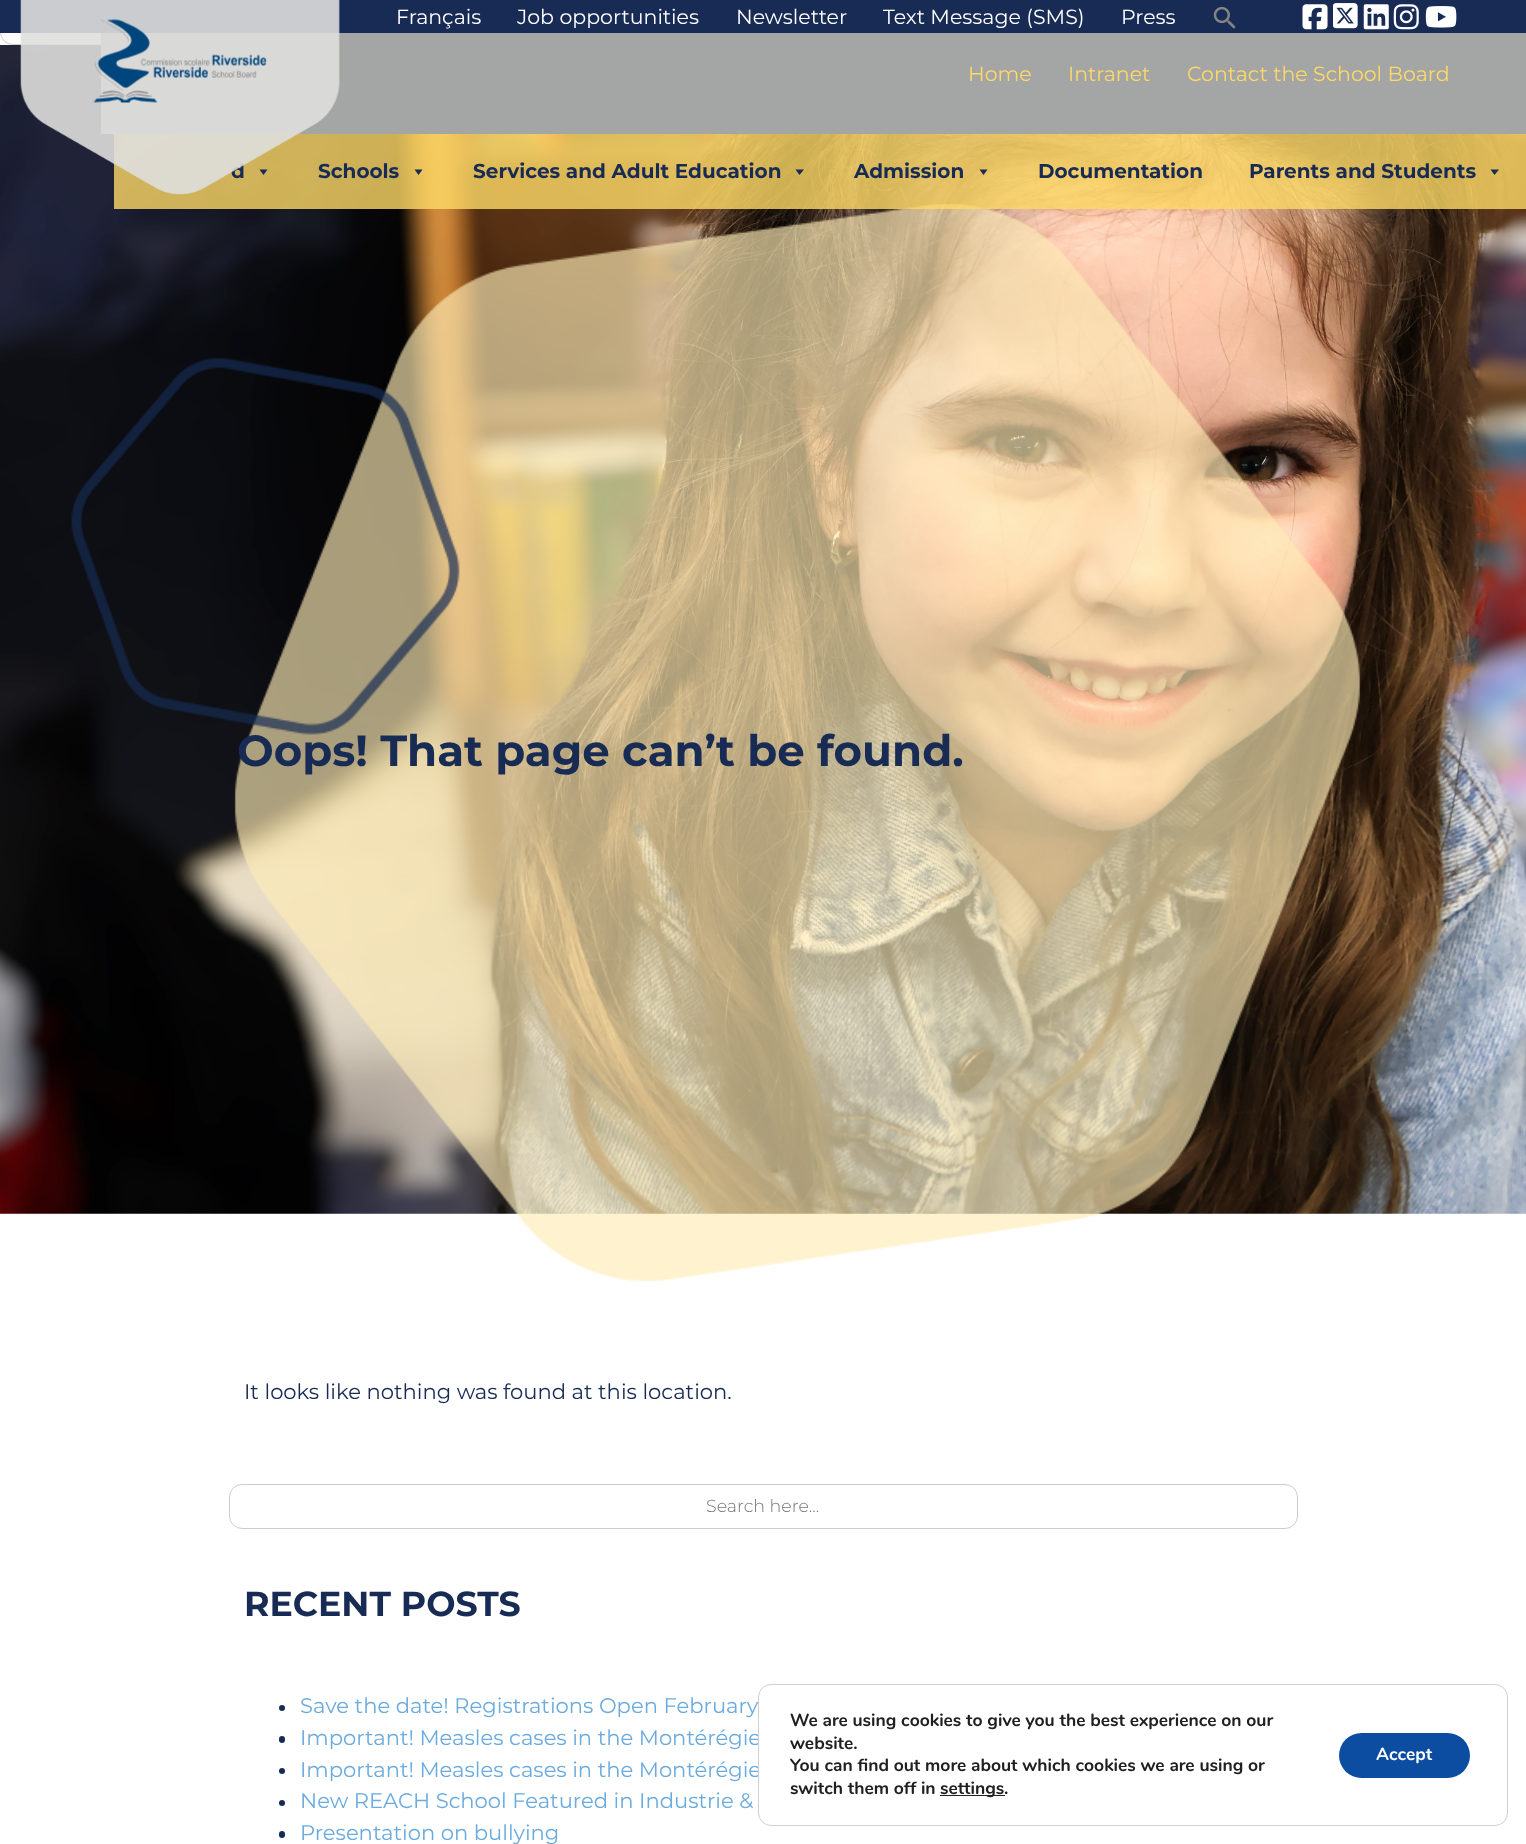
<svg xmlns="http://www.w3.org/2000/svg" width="1526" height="1844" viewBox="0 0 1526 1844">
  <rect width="100%" height="100%" fill="rgb(255,255,255)"/>
  <rect x="0.5" y="0.5" width="1525" height="44" rx="12.5" fill="none" stroke="rgb(204,204,204)"/>
  <rect x="0" y="0" width="1526" height="33" fill="rgb(23,43,84)"/>
  <image x="0" y="45" width="1526" height="1169" href="pic9.png"/>
  <rect x="101" y="33" width="1425" height="101" fill="rgb(164,165,165)"/>
  <image x="71" y="203" width="1289" height="1079" href="pic10.png"/>
  <rect x="114" y="134" width="1412" height="75" fill="rgba(254,217,103,0.8)"/>
  <text x="231" y="178" font-family="Montserrat" font-size="20" font-weight="bold" fill="rgb(23,43,84)">d</text>
  <path d="M267.5 169.5L263.5 175L259.5 169.5Z" fill="rgb(23,43,84)"/>
  <text x="318" y="178" font-family="Montserrat" font-size="20" font-weight="bold" fill="rgb(23,43,84)">Schools</text>
  <image x="20" y="0" width="320" height="195" href="pic1.png"/>
  <image x="93" y="19" width="174" height="84" href="pic2.png"/>
  <g font-family="Montserrat" font-size="20.5" fill="rgb(255,255,255)">
    <text x="396" y="24">Français</text>
    <text x="517" y="24">Job opportunities</text>
    <text x="736" y="24">Newsletter</text>
    <text x="883" y="24">Text Message (SMS)</text>
    <text x="1121" y="24">Press</text>
  </g>
  <image x="1213" y="6" width="23" height="23" href="pic3.png"/>
  <image x="1302" y="4" width="26" height="26" href="pic4.png"/>
  <image x="1333" y="3" width="25" height="26" href="pic5.png"/>
  <image x="1363" y="4" width="26" height="26" href="pic6.png"/>
  <image x="1393" y="4" width="26" height="26" href="pic7.png"/>
  <image x="1425" y="6" width="32" height="22" href="pic8.png"/>
  <g font-family="Montserrat" font-size="20.5" fill="rgb(254,217,103)">
    <text x="968" y="81">Home</text>
    <text x="1068" y="81">Intranet</text>
    <text x="1187" y="81">Contact the School Board</text>
  </g>
  <path d="M422.5 169.5L418.5 175L414.5 169.5Z" fill="rgb(23,43,84)"/>
  <text x="473" y="178" font-family="Montserrat" font-size="20" font-weight="bold" fill="rgb(23,43,84)">Services and Adult Education</text>
  <path d="M804 169.5L799.5 175L795.5 169.5Z" fill="rgb(23,43,84)"/>
  <text x="854" y="178" font-family="Montserrat" font-size="20" font-weight="bold" fill="rgb(23,43,84)">Admission</text>
  <path d="M987.5 169.5L983.5 175L979.5 169.5Z" fill="rgb(23,43,84)"/>
  <g font-family="Montserrat" font-size="20" font-weight="bold" fill="rgb(23,43,84)">
    <text x="1038" y="178">Documentation</text>
    <text x="1249" y="178">Parents and Students</text>
  </g>
  <path d="M1499 169.5L1494.5 175L1490.5 169.5Z" fill="rgb(23,43,84)"/>
  <text x="237" y="766" font-family="Montserrat" font-size="43.5" font-weight="bold" fill="rgb(23,43,84)">Oops! That page can’t be found.</text>
  <text x="244" y="1399" font-family="Montserrat" font-size="21.1" fill="rgb(23,43,84)">It looks like nothing was found at this location.</text>
  <rect x="229.5" y="1484.5" width="1068" height="44" rx="12.5" fill="none" stroke="rgb(204,204,204)"/>
  <text x="706" y="1512" font-family="Montserrat" font-size="17.5" font-weight="300" fill="rgb(117,117,117)">Search here...</text>
  <text x="244" y="1616" font-family="Montserrat" font-size="34.75" font-weight="bold" fill="rgb(23,43,84)">RECENT POSTS</text>
  <circle cx="282" cy="1708" r="3" fill="rgb(23,43,84)"/>
  <text x="300" y="1713" font-family="Montserrat" font-size="21.1" fill="rgb(107,171,222)">Save the date! Registrations Open February</text>
  <rect x="279" y="1736" width="6" height="7" rx="3" fill="rgb(23,43,84)"/>
  <text x="300" y="1745" font-family="Montserrat" font-size="21.1" fill="rgb(107,171,222)">Important! Measles cases in the Montérégie</text>
  <circle cx="282" cy="1771" r="3" fill="rgb(23,43,84)"/>
  <text x="300" y="1777" font-family="Montserrat" font-size="21.1" fill="rgb(107,171,222)">Important! Measles cases in the Montérégie</text>
  <circle cx="282" cy="1803" r="3" fill="rgb(23,43,84)"/>
  <text x="300" y="1808" font-family="Montserrat" font-size="21.1" fill="rgb(107,171,222)">New REACH School Featured in Industrie &amp;</text>
  <rect x="279" y="1831" width="6" height="7" rx="3" fill="rgb(23,43,84)"/>
  <text x="300" y="1840" font-family="Montserrat" font-size="21.1" fill="rgb(107,171,222)">Presentation on bullying</text>
  <rect x="758.5" y="1684.5" width="749" height="141" rx="12.5" fill="rgb(255,255,255)" stroke="rgb(211,206,210)"/>
  <g font-family="Nunito" font-size="17.5" font-weight="bold" fill="rgb(32,32,32)">
    <text>
      <tspan x="790" y="1726">We are using cookies to give you the best experience on our</tspan>
      <tspan x="790" y="1749">website.</tspan>
      <tspan x="790" y="1771">You can find out more about which cookies we are using or</tspan>
      <tspan x="790" y="1794">switch them off in</tspan>
    </text>
  </g>
  <rect x="940" y="1795" width="65" height="1" fill="rgb(32,32,32)"/>
  <text x="940" y="1794" font-family="Nunito" font-size="17.5" font-weight="bold" fill="rgb(32,32,32)">settings.</text>
  <rect x="1339" y="1733" width="131" height="45" rx="22.5" fill="rgb(12,77,162)"/>
  <text x="1376" y="1760" font-family="Nunito" font-size="17.5" font-weight="bold" fill="rgb(255,255,255)">Accept</text>
</svg>
